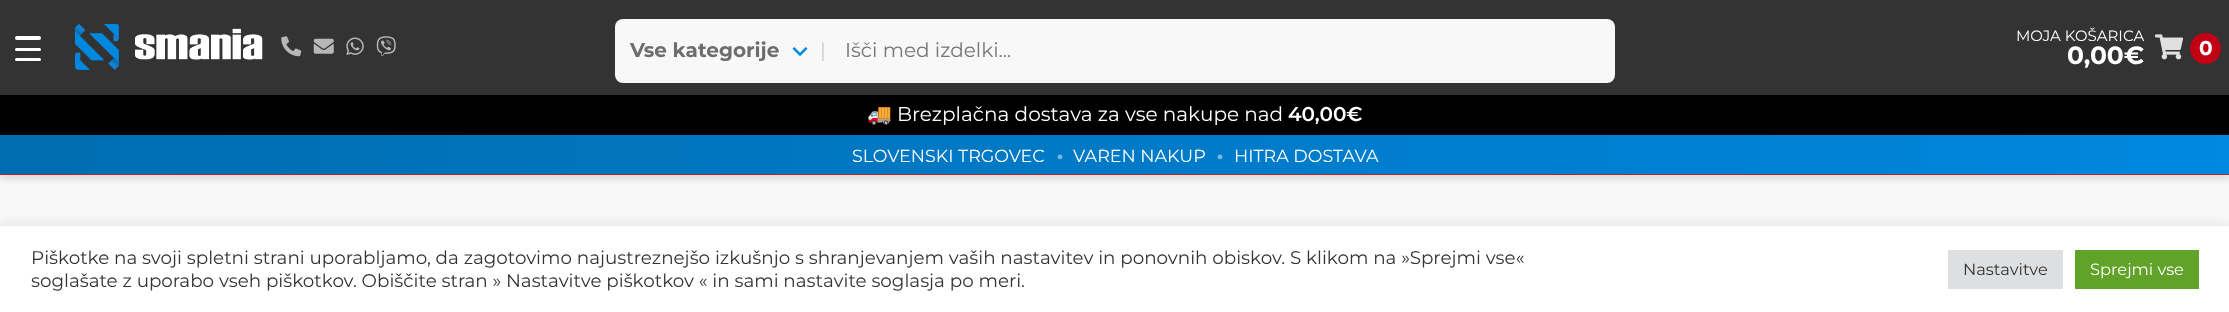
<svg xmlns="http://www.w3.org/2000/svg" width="2229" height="312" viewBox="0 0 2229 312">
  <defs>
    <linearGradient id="g1" gradientUnits="userSpaceOnUse" x1="0" y1="154" x2="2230" y2="154"><stop offset="0" stop-color="rgb(0,109,176)"/><stop offset="1" stop-color="rgb(0,135,222)"/></linearGradient>
  </defs>
  <rect width="100%" height="100%" fill="rgb(248,248,248)"/>
  <rect x="0" y="5" width="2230" height="175" fill="rgba(0,0,0,0.1)" filter="blur(3px)"/>
  <rect x="0" y="0" width="2229" height="95" fill="rgb(51,51,51)"/>
  <text x="2016" y="41" font-family="Montserrat" font-size="15" fill="rgb(255,255,255)">MOJA KOŠARICA</text>
  <image x="2155" y="34" width="29" height="26" href="pic1.png"/>
  <text x="2067" y="64" font-family="Montserrat" font-size="25" font-weight="bold" fill="rgb(255,255,255)">0,00€</text>
  <rect x="0" y="174" width="2229" height="1" fill="rgb(179,36,46)"/>
  <rect x="15" y="36" width="26" height="4" rx="2" fill="rgb(255,255,255)"/>
  <rect x="15" y="48" width="26" height="3" rx="1.5" fill="rgb(255,255,255)"/>
  <rect x="15" y="58" width="26" height="3" rx="1.5" fill="rgb(255,255,255)"/>
  <image x="75" y="23" width="188" height="47" href="pic2.png"/>
  <image x="281" y="36" width="21" height="21" href="pic3.png"/>
  <image x="313" y="38" width="21" height="16" href="pic4.png"/>
  <image x="346" y="37" width="18" height="18" href="pic5.png"/>
  <image x="376" y="36" width="20" height="21" href="pic6.png"/>
  <rect x="615" y="19" width="1000" height="64" rx="8" fill="rgb(248,248,248)"/>
  <text x="630" y="57" font-family="Montserrat" font-size="20" font-weight="bold" fill="rgb(109,109,109)">Vse kategorije</text>
  <image x="792" y="47" width="16" height="10" href="pic7.png"/>
  <text x="820" y="57" font-family="Montserrat" font-size="20" fill="rgb(204,204,204)">|</text>
  <text x="845" y="57" font-family="Montserrat" font-size="20" fill="rgb(117,117,117)">Išči med izdelki...</text>
  <circle cx="2205.5" cy="48.5" r="15.5" fill="rgb(194,1,20)"/>
  <text x="2199" y="55" font-family="Montserrat" font-size="20" font-weight="bold" fill="rgb(255,255,255)">0</text>
  <rect x="0" y="95" width="2229" height="40" fill="rgb(0,0,0)"/>
  <text x="867" y="121" font-family="Noto Color Emoji" font-size="20" fill="rgb(255,255,255)">🚚</text>
  <text x="897" y="121" font-family="Montserrat" font-size="20" fill="rgb(255,255,255)">Brezplačna dostava za vse nakupe nad</text>
  <text x="1288" y="121" font-family="Montserrat" font-size="20" font-weight="600" fill="rgb(255,255,255)">40,00€</text>
  <rect x="0" y="135" width="2229" height="39" fill="url(#g1)"/>
  <text x="852" y="162" font-family="Montserrat" font-size="17.5" fill="rgb(255,255,255)">SLOVENSKI TRGOVEC</text>
  <image x="1057" y="154" width="6" height="6" href="pic8.png"/>
  <text x="1073" y="162" font-family="Montserrat" font-size="17.5" fill="rgb(255,255,255)">VAREN NAKUP</text>
  <image x="1217" y="154" width="6" height="6" href="pic9.png"/>
  <text x="1234" y="162" font-family="Montserrat" font-size="17.5" fill="rgb(255,255,255)">HITRA DOSTAVA</text>
  <rect x="0" y="225" width="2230" height="86" fill="rgba(172,171,171,0.3)" filter="blur(6px)"/>
  <rect x="0" y="226" width="2229" height="86" fill="rgb(255,255,255)"/>
  <g font-family="Montserrat" font-size="18.33" fill="rgb(51,51,51)">
    <text>
      <tspan x="31" y="264">Piškotke na svoji spletni strani uporabljamo, da zagotovimo najustreznejšo izkušnjo s shranjevanjem vaših nastavitev in ponovnih obiskov. S klikom na »Sprejmi vse«</tspan>
      <tspan x="31" y="287">soglašate z uporabo vseh piškotkov. Obiščite stran » Nastavitve piškotkov « in sami nastavite soglasja po meri.</tspan>
    </text>
  </g>
  <rect x="1948" y="250" width="115" height="39" fill="rgb(222,223,224)"/>
  <text x="1963" y="275" font-family="Montserrat" font-size="16.25" fill="rgb(51,51,51)">Nastavitve</text>
  <rect x="2075" y="250" width="124" height="39" fill="rgb(97,162,41)"/>
  <text x="2090" y="275" font-family="Montserrat" font-size="16.25" fill="rgb(255,255,255)">Sprejmi vse</text>
</svg>
